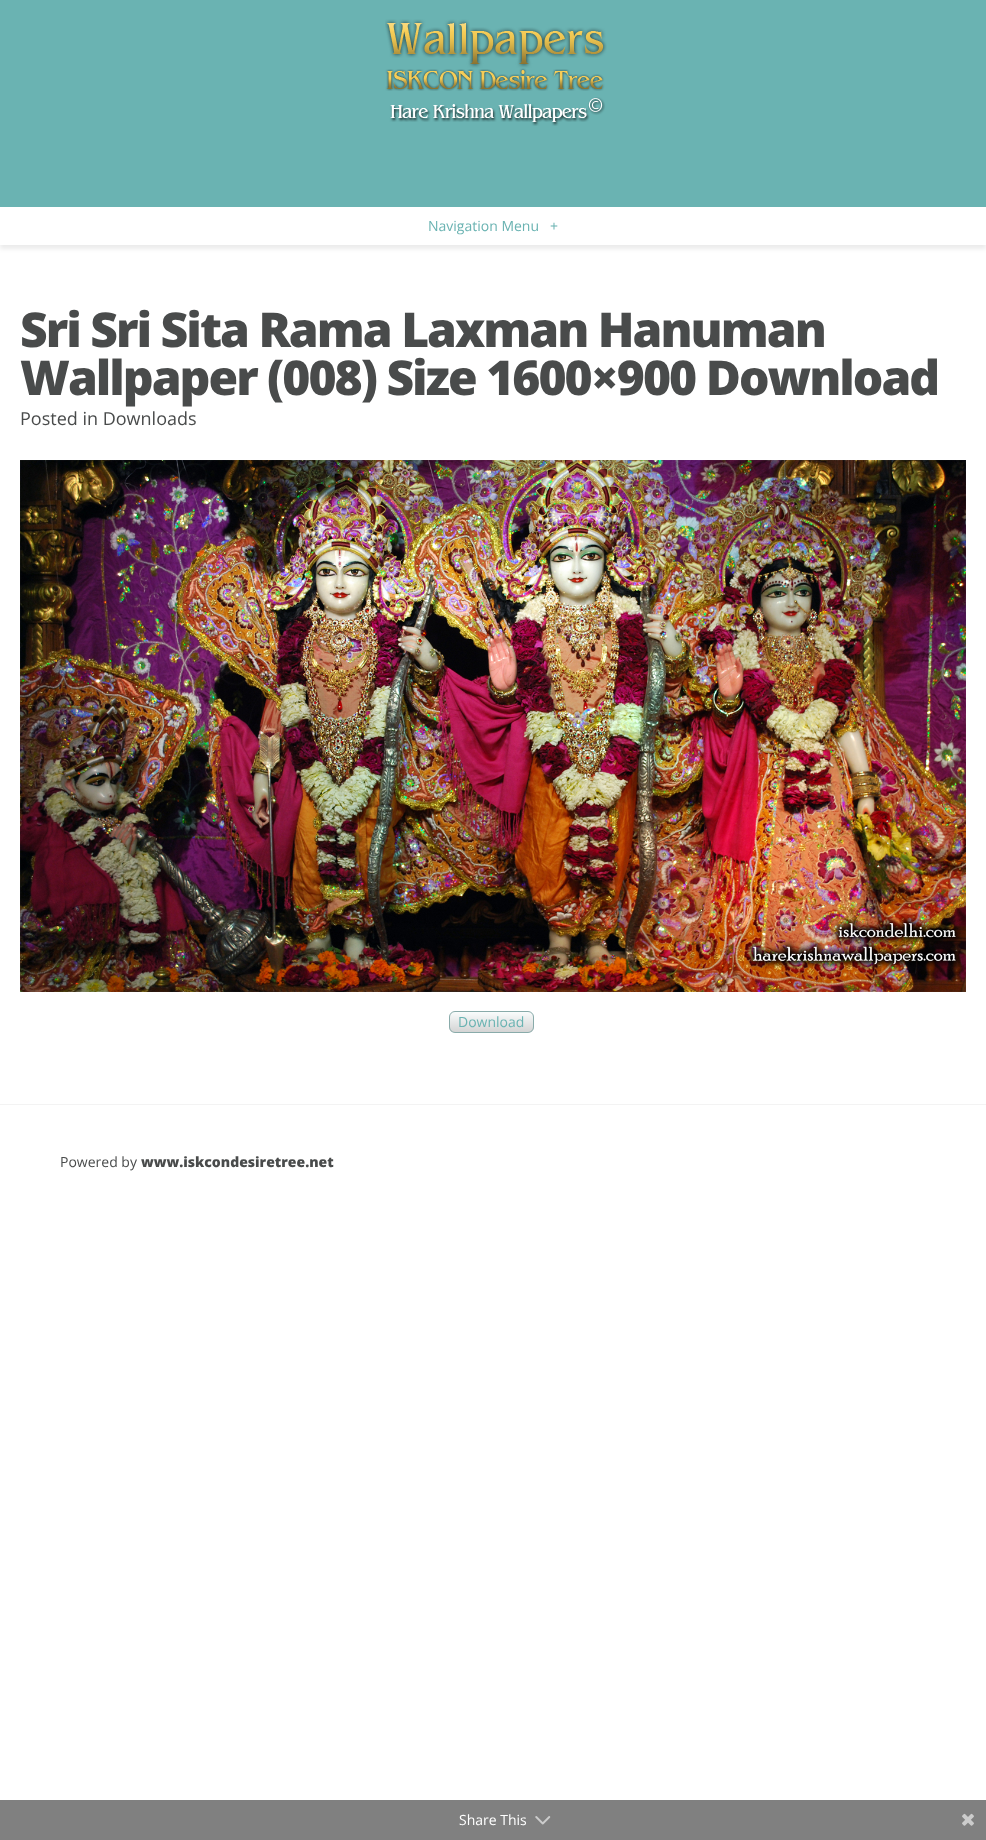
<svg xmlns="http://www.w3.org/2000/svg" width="986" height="1840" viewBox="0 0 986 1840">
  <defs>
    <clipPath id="clip1"><rect x="449" y="1011" width="85" height="22" rx="6"/></clipPath>
    <linearGradient id="g1" gradientUnits="userSpaceOnUse" x1="492" y1="1012" x2="492" y2="1032"><stop offset="0" stop-color="rgb(249,252,252)"/><stop offset="1" stop-color="rgb(212,212,212)"/></linearGradient>
  </defs>
  <rect width="100%" height="100%" fill="rgb(255,255,255)"/>
  <rect x="0" y="4" width="986" height="245" fill="rgba(0,0,0,0.08)" filter="blur(2px)"/>
  <rect x="0" y="0" width="986" height="207" fill="rgb(106,179,178)"/>
  <image x="385" y="19" width="222" height="107" href="pic1.png"/>
  <rect x="0" y="207" width="986" height="38" fill="rgb(255,255,255)"/>
  <g font-family="Open Sans" font-size="14" fill="rgb(106,179,178)">
    <text x="428" y="231">Navigation Menu</text>
    <text x="550" y="231">+</text>
  </g>
  <g font-family="Open Sans" font-size="48" font-weight="800" letter-spacing="-2" fill="rgb(73,75,75)">
    <text>
      <tspan x="20" y="347">Sri Sri Sita Rama Laxman Hanuman</tspan>
      <tspan x="20" y="395">Wallpaper (008) Size 1600×900 Download</tspan>
    </text>
  </g>
  <text x="20" y="425" font-family="Open Sans" font-size="18" fill="rgb(73,75,75)">Posted in Downloads</text>
  <image x="20" y="460" width="946" height="532" href="pic2.png"/>
  <g clip-path="url(#clip1)">
    <rect x="449" y="1012" width="85" height="20" fill="url(#g1)"/>
  </g>
  <rect x="449.5" y="1011.5" width="84" height="21" rx="5.5" fill="none" stroke="rgb(137,171,170)"/>
  <text x="458" y="1027" font-family="Open Sans" font-size="14" fill="rgb(106,179,178)">Download</text>
  <rect x="0" y="1104" width="986" height="1" fill="rgb(243,243,243)"/>
  <text x="60" y="1167" font-family="Open Sans" font-size="14" fill="rgb(73,75,75)">Powered by</text>
  <text x="141" y="1167" font-family="Open Sans" font-size="14" font-weight="800" fill="rgb(73,75,75)">www.iskcondesiretree.net</text>
  <rect x="0" y="1800" width="986" height="40" fill="rgb(128,128,128)"/>
  <text x="459" y="1825" font-family="Open Sans" font-size="14" fill="rgb(255,255,255)">Share This</text>
  <image x="535" y="1816" width="16" height="9" href="pic3.png"/>
  <image x="962" y="1813" width="12" height="13" href="pic4.png"/>
</svg>
